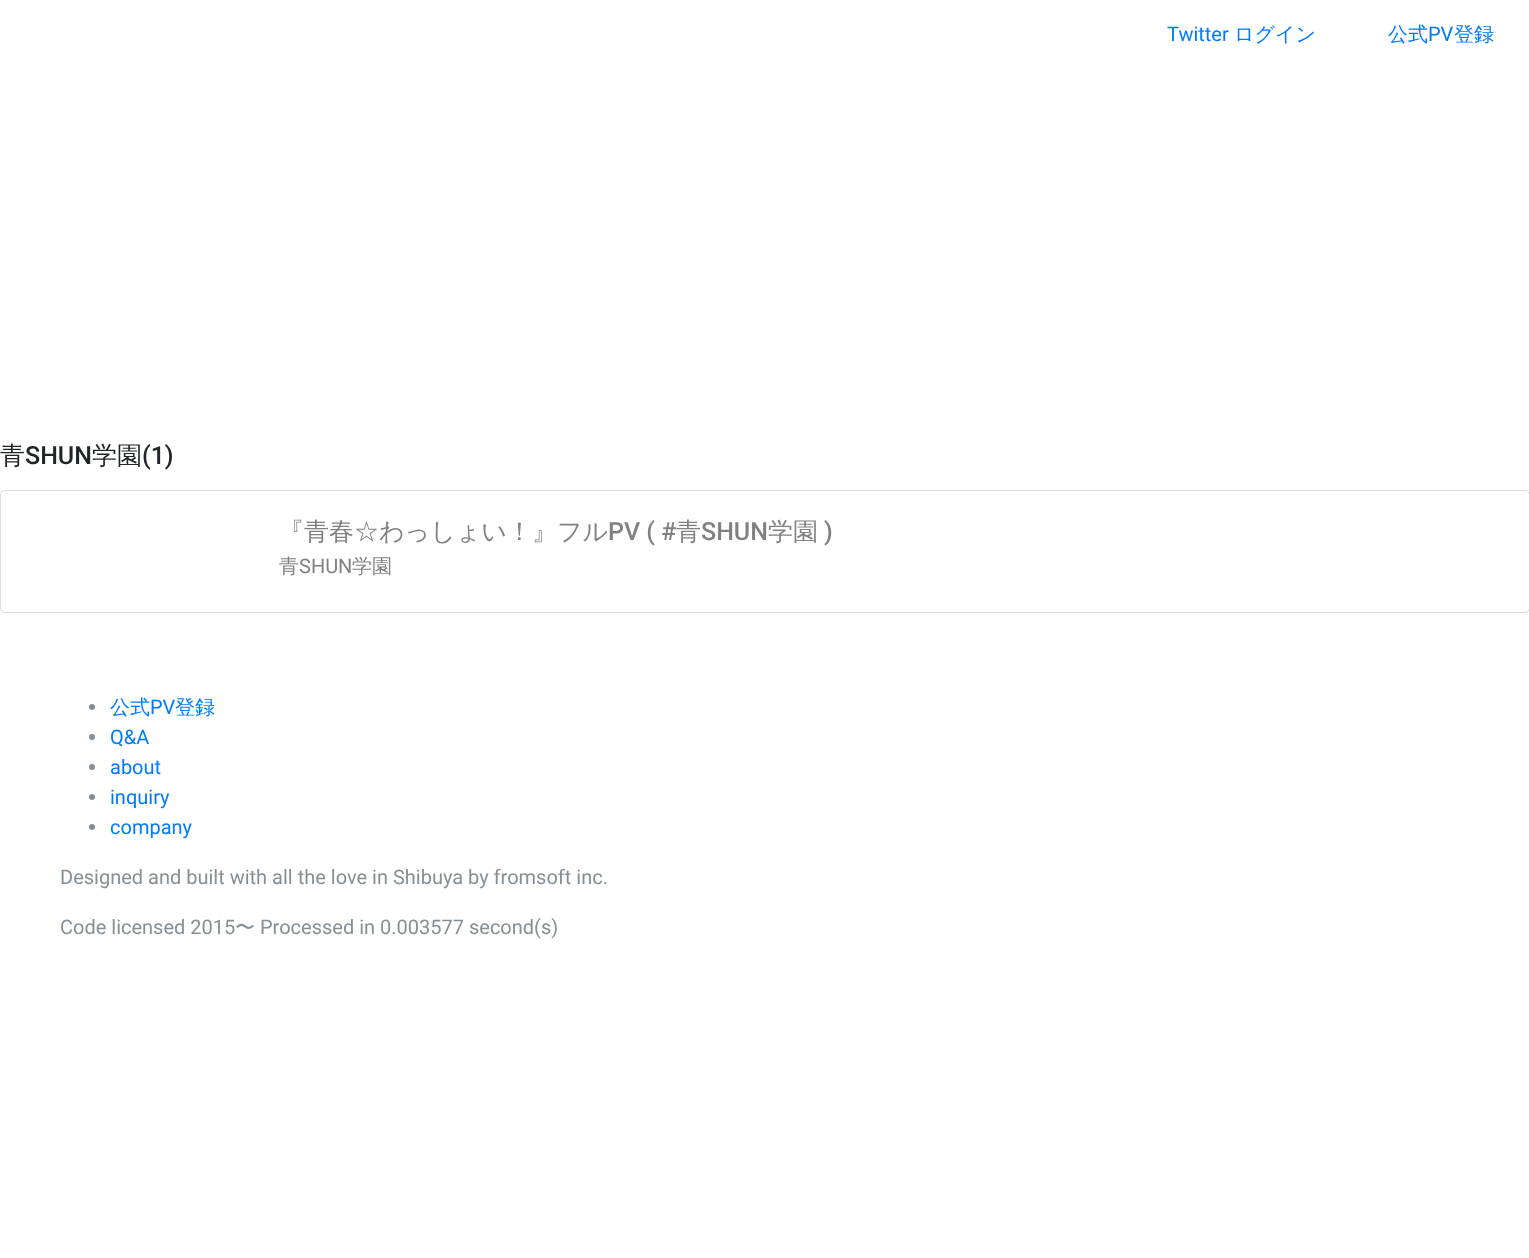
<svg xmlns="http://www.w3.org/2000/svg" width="1529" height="1258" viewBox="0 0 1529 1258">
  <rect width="100%" height="100%" fill="rgb(255,255,255)"/>
  <text x="1167" y="41" font-family="Roboto" font-size="20" fill="rgb(0,123,255)">Twitter</text>
  <g font-family="WenQuanYi Zen Hei" font-size="20" font-weight="500" fill="rgb(0,123,255)">
    <text x="1234" y="41">ログイン</text>
    <text x="1388" y="41">公式</text>
  </g>
  <text x="1428" y="41" font-family="Roboto" font-size="20" fill="rgb(0,123,255)">PV</text>
  <text x="1454" y="41" font-family="WenQuanYi Zen Hei" font-size="20" font-weight="500" fill="rgb(0,123,255)">登録</text>
  <text x="0" y="464" font-family="WenQuanYi Zen Hei" font-size="25" font-weight="500" fill="rgb(33,37,41)">青</text>
  <text x="25" y="464" font-family="Roboto" font-size="25" font-weight="500" fill="rgb(33,37,41)">SHUN</text>
  <text x="92" y="464" font-family="WenQuanYi Zen Hei" font-size="25" font-weight="500" fill="rgb(33,37,41)">学園</text>
  <text x="142" y="464" font-family="Roboto" font-size="25" font-weight="500" fill="rgb(33,37,41)">(1)</text>
  <rect x="0.5" y="490.5" width="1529" height="122" rx="4.5" fill="none" stroke="rgb(221,221,222)"/>
  <text x="279" y="540" font-family="WenQuanYi Zen Hei" font-size="25" font-weight="500" fill="rgb(129,129,130)">『青春☆わっしょい！』フル</text>
  <text x="608" y="540" font-family="Roboto" font-size="25" font-weight="500" fill="rgb(129,129,130)">PV ( #</text>
  <text x="676" y="540" font-family="WenQuanYi Zen Hei" font-size="25" font-weight="500" fill="rgb(129,129,130)">青</text>
  <text x="701" y="540" font-family="Roboto" font-size="25" font-weight="500" fill="rgb(129,129,130)">SHUN</text>
  <text x="768" y="540" font-family="WenQuanYi Zen Hei" font-size="25" font-weight="500" fill="rgb(129,129,130)">学園</text>
  <text x="824" y="540" font-family="Roboto" font-size="25" font-weight="500" fill="rgb(129,129,130)">)</text>
  <text x="279" y="573" font-family="WenQuanYi Zen Hei" font-size="20" font-weight="500" fill="rgb(129,129,130)">青</text>
  <text x="299" y="573" font-family="Roboto" font-size="20" fill="rgb(129,129,130)">SHUN</text>
  <text x="352" y="573" font-family="WenQuanYi Zen Hei" font-size="20" font-weight="500" fill="rgb(129,129,130)">学園</text>
  <circle cx="92" cy="707" r="3" fill="rgb(134,142,150)"/>
  <text x="110" y="714" font-family="WenQuanYi Zen Hei" font-size="20" font-weight="500" fill="rgb(0,123,255)">公式</text>
  <text x="150" y="714" font-family="Roboto" font-size="20" fill="rgb(0,123,255)">PV</text>
  <text x="175" y="714" font-family="WenQuanYi Zen Hei" font-size="20" font-weight="500" fill="rgb(0,123,255)">登録</text>
  <circle cx="92" cy="737" r="3" fill="rgb(134,142,150)"/>
  <text x="110" y="744" font-family="Roboto" font-size="20" fill="rgb(0,123,255)">Q&amp;A</text>
  <circle cx="92" cy="767" r="3" fill="rgb(134,142,150)"/>
  <text x="110" y="774" font-family="Roboto" font-size="20" fill="rgb(0,123,255)">about</text>
  <circle cx="92" cy="797" r="3" fill="rgb(134,142,150)"/>
  <text x="110" y="804" font-family="Roboto" font-size="20" fill="rgb(0,123,255)">inquiry</text>
  <circle cx="92" cy="827" r="3" fill="rgb(134,142,150)"/>
  <text x="110" y="834" font-family="Roboto" font-size="20" fill="rgb(0,123,255)">company</text>
  <g font-family="Roboto" font-size="20" fill="rgb(134,142,150)">
    <text x="60" y="884">Designed and built with all the love in Shibuya by fromsoft inc.</text>
    <text x="60" y="934">Code licensed 2015</text>
  </g>
  <text x="235" y="934" font-family="WenQuanYi Zen Hei" font-size="20" font-weight="500" fill="rgb(134,142,150)">〜</text>
  <text x="260" y="934" font-family="Roboto" font-size="20" fill="rgb(134,142,150)">Processed in 0.003577 second(s)</text>
</svg>
